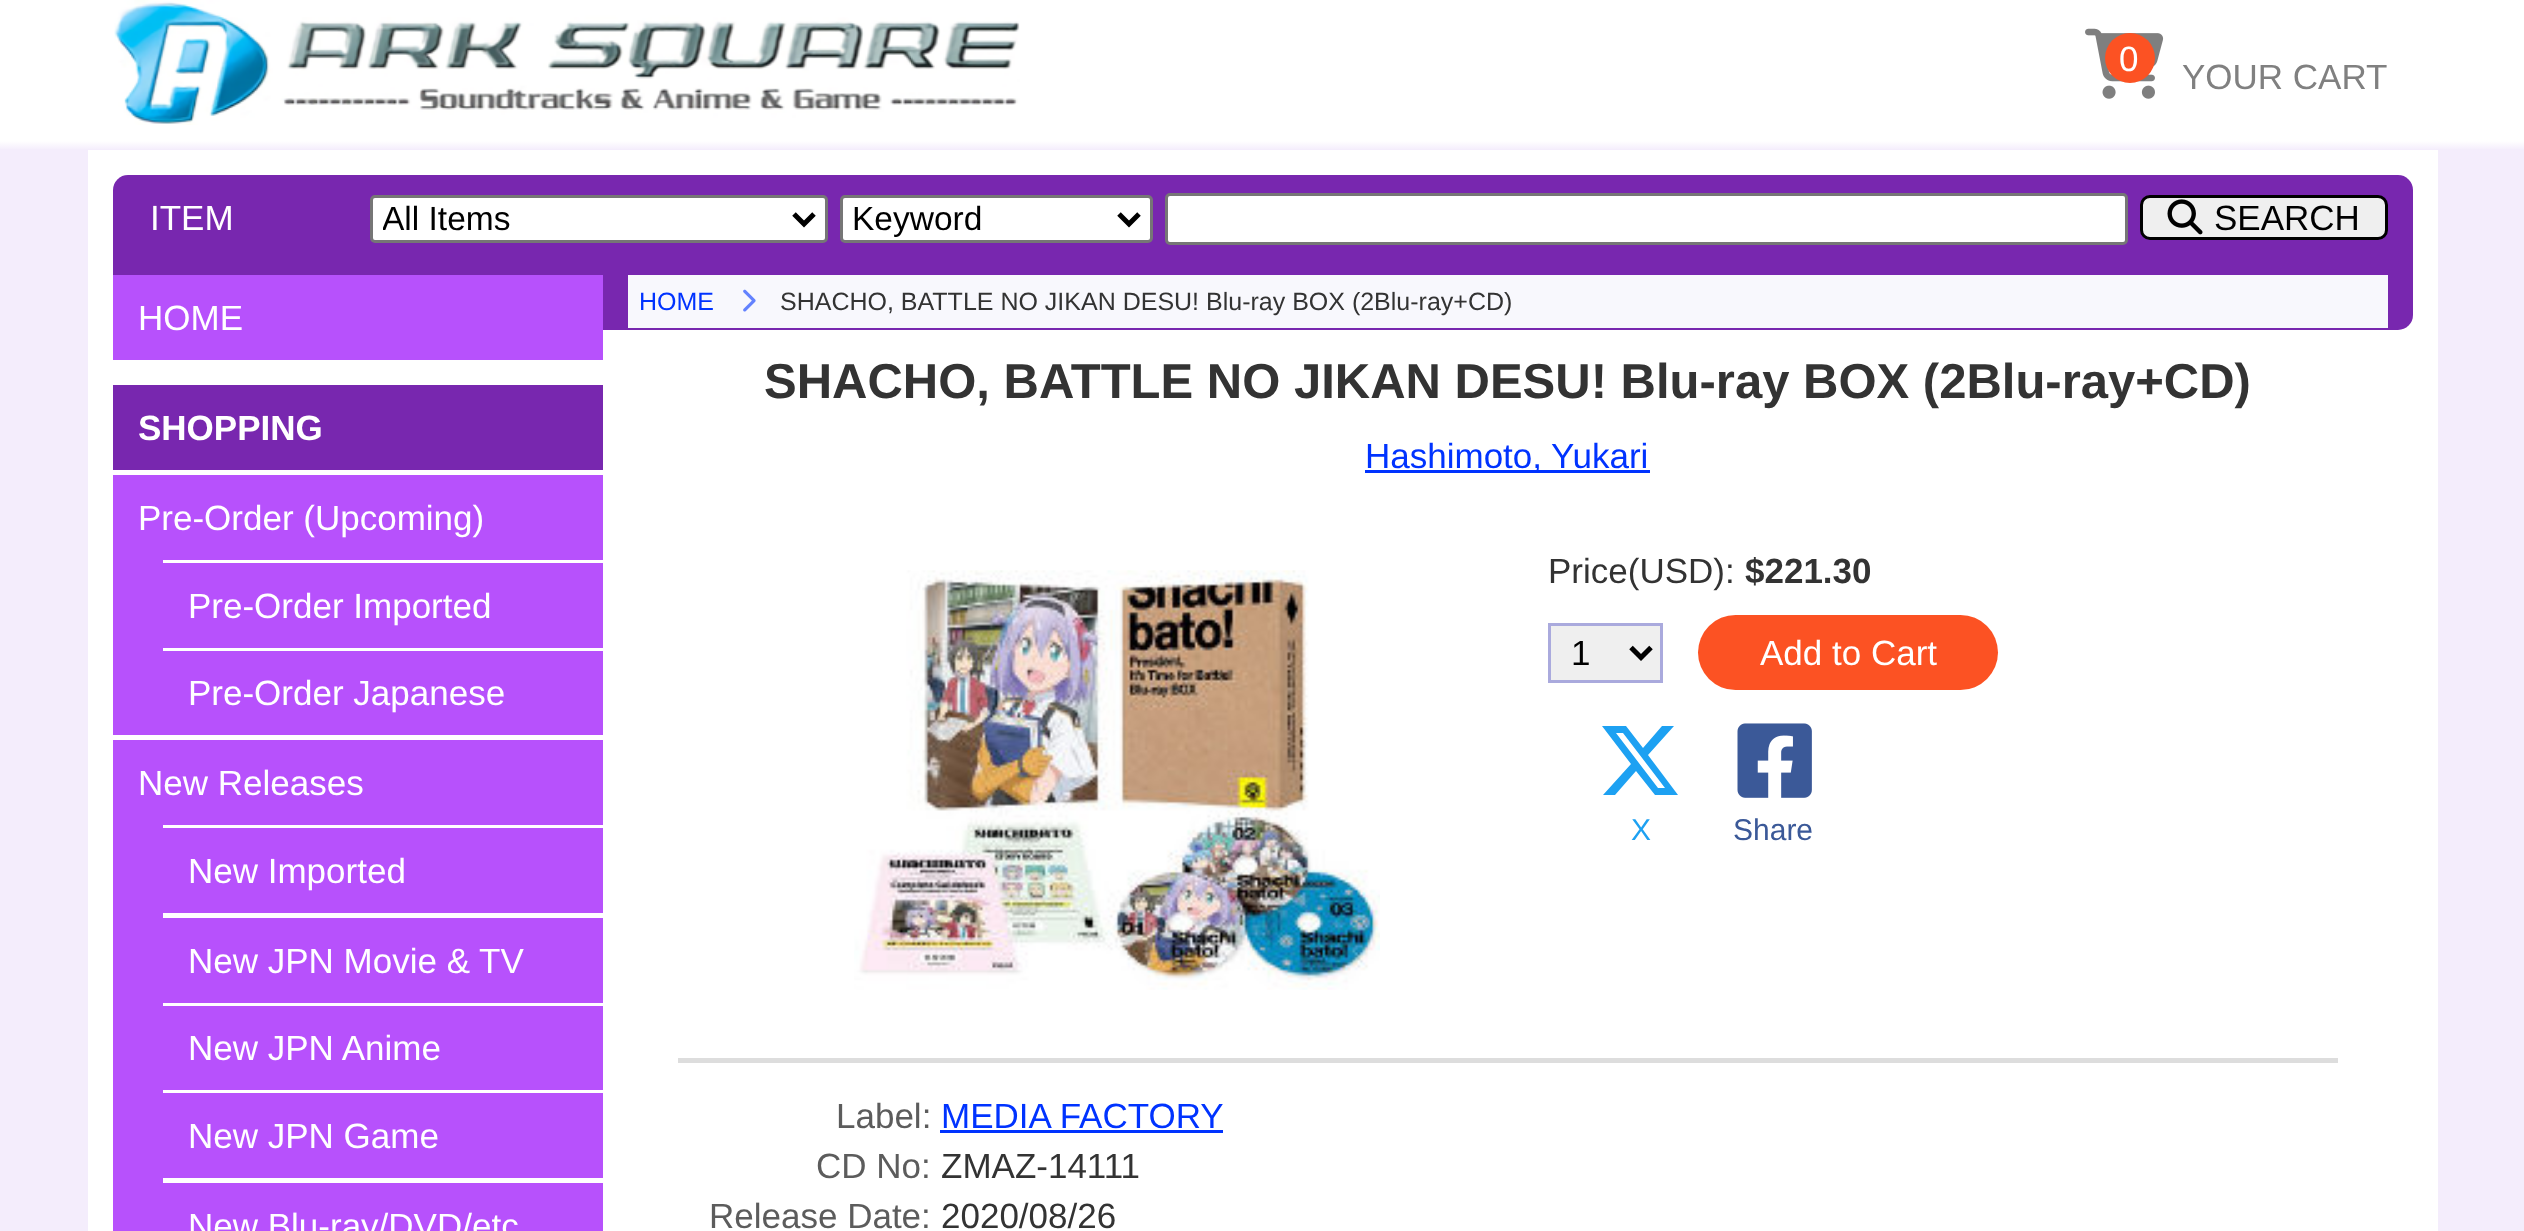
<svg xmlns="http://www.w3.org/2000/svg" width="2524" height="1231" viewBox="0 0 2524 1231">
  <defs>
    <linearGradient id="g1" gradientUnits="userSpaceOnUse" x1="1263" y1="0" x2="1263" y2="150"><stop offset="0.94" stop-color="rgb(255,255,255)"/><stop offset="1" stop-color="rgb(244,237,252)"/></linearGradient>
    <clipPath id="clip1"><rect x="383" y="198" width="402" height="42"/></clipPath>
  </defs>
  <rect width="100%" height="100%" fill="rgb(244,237,252)"/>
  <rect x="0" y="0" width="2524" height="149" fill="url(#g1)"/>
  <image x="114" y="0" width="906" height="125" href="pic1.png"/>
  <image x="2085" y="28" width="79" height="71" href="pic2.png"/>
  <circle cx="2130" cy="58" r="25" fill="rgb(252,82,35)"/>
  <text x="2119" y="71" font-family="Liberation Sans" font-size="35" fill="rgb(255,255,255)">0</text>
  <text x="2182" y="89" font-family="Liberation Sans" font-size="35" fill="rgb(128,128,128)">YOUR CART</text>
  <rect x="88" y="150" width="2350" height="1081" fill="rgb(255,255,255)"/>
  <rect x="113" y="175" width="2300" height="155" rx="15" fill="rgb(120,39,175)"/>
  <text x="150" y="230" font-family="Liberation Sans" font-size="35" fill="rgb(255,255,255)">ITEM</text>
  <rect x="371.5" y="196.5" width="455" height="45" rx="3.5" fill="rgb(255,255,255)" stroke="rgb(118,118,118)" stroke-width="3"/>
  <path d="M794 214L804 224L814 214" fill="none" stroke="rgb(0,0,0)" stroke-width="5"/>
  <g clip-path="url(#clip1)">
    <text x="382" y="230" font-family="Liberation Sans" font-size="33.5" fill="rgb(0,0,0)">All Items</text>
  </g>
  <rect x="841.5" y="196.5" width="310" height="45" rx="3.5" fill="rgb(255,255,255)" stroke="rgb(118,118,118)" stroke-width="3"/>
  <path d="M1119 214L1129 224L1139 214" fill="none" stroke="rgb(0,0,0)" stroke-width="5"/>
  <text x="852" y="230" font-family="Liberation Sans" font-size="33.5" fill="rgb(0,0,0)">Keyword</text>
  <rect x="1166.5" y="194.5" width="960" height="49" rx="3.5" fill="rgb(255,255,255)" stroke="rgb(118,118,118)" stroke-width="3"/>
  <rect x="2141.5" y="196.5" width="245" height="42" rx="8.5" fill="rgb(239,239,239)" stroke="rgb(0,0,0)" stroke-width="3"/>
  <image x="2167" y="199" width="36" height="36" href="pic3.png"/>
  <text x="2214" y="230" font-family="Liberation Sans" font-size="35" fill="rgb(0,0,0)">SEARCH</text>
  <rect x="113" y="275" width="490" height="85" fill="rgb(183,81,252)"/>
  <text x="138" y="330" font-family="Liberation Sans" font-size="35" fill="rgb(255,255,255)">HOME</text>
  <rect x="113" y="385" width="490" height="85" fill="rgb(120,39,175)"/>
  <text x="138" y="440" font-family="Liberation Sans" font-size="35" font-weight="bold" fill="rgb(255,255,255)">SHOPPING</text>
  <rect x="113" y="475" width="490" height="260" fill="rgb(183,81,252)"/>
  <text x="138" y="530" font-family="Liberation Sans" font-size="35" fill="rgb(255,255,255)">Pre-Order (Upcoming)</text>
  <rect x="163" y="560" width="440" height="3" fill="rgb(255,255,255)"/>
  <text x="188" y="618" font-family="Liberation Sans" font-size="35" fill="rgb(255,255,255)">Pre-Order Imported</text>
  <rect x="163" y="648" width="440" height="3" fill="rgb(255,255,255)"/>
  <text x="188" y="705" font-family="Liberation Sans" font-size="35" fill="rgb(255,255,255)">Pre-Order Japanese</text>
  <rect x="113" y="740" width="490" height="491" fill="rgb(183,81,252)"/>
  <text x="138" y="795" font-family="Liberation Sans" font-size="35" fill="rgb(255,255,255)">New Releases</text>
  <rect x="163" y="825" width="440" height="3" fill="rgb(255,255,255)"/>
  <text x="188" y="883" font-family="Liberation Sans" font-size="35" fill="rgb(255,255,255)">New Imported</text>
  <rect x="163" y="913" width="440" height="5" fill="rgb(255,255,255)"/>
  <text x="188" y="973" font-family="Liberation Sans" font-size="35" fill="rgb(255,255,255)">New JPN Movie &amp; TV</text>
  <rect x="163" y="1003" width="440" height="3" fill="rgb(255,255,255)"/>
  <text x="188" y="1060" font-family="Liberation Sans" font-size="35" fill="rgb(255,255,255)">New JPN Anime</text>
  <rect x="163" y="1090" width="440" height="3" fill="rgb(255,255,255)"/>
  <text x="188" y="1148" font-family="Liberation Sans" font-size="35" fill="rgb(255,255,255)">New JPN Game</text>
  <rect x="163" y="1178" width="440" height="5" fill="rgb(255,255,255)"/>
  <text x="188" y="1238" font-family="Liberation Sans" font-size="35" fill="rgb(255,255,255)">New Blu-ray/DVD/etc</text>
  <rect x="628" y="275" width="1760" height="53" fill="rgb(248,248,253)"/>
  <text x="639" y="310" font-family="Liberation Sans" font-size="25" fill="rgb(0,51,255)">HOME</text>
  <image x="743" y="289" width="13" height="23" href="pic4.png"/>
  <text x="780" y="310" font-family="Liberation Sans" font-size="25" fill="rgb(51,51,51)">SHACHO, BATTLE NO JIKAN DESU! Blu-ray BOX (2Blu-ray+CD)</text>
  <text x="764" y="398" font-family="Liberation Sans" font-size="49" font-weight="bold" fill="rgb(51,51,51)">SHACHO, BATTLE NO JIKAN DESU! Blu-ray BOX (2Blu-ray+CD)</text>
  <rect x="1365" y="470" width="285" height="3" fill="rgb(0,51,255)"/>
  <text x="1365" y="468" font-family="Liberation Sans" font-size="35" fill="rgb(0,51,255)">Hashimoto, Yukari</text>
  <image x="854" y="570" width="526" height="420" href="pic5.png"/>
  <text x="1548" y="583" font-family="Liberation Sans" font-size="35" fill="rgb(51,51,51)">Price(USD):</text>
  <text x="1745" y="583" font-family="Liberation Sans" font-size="35" font-weight="bold" fill="rgb(51,51,51)">$221.30</text>
  <rect x="1549.5" y="624.5" width="112" height="57" fill="rgb(239,239,239)" stroke="rgb(170,170,221)" stroke-width="3"/>
  <path d="M1631 647.5L1641 657.5L1651 647.5" fill="none" stroke="rgb(0,0,0)" stroke-width="5"/>
  <text x="1571" y="665" font-family="Liberation Sans" font-size="35" fill="rgb(0,0,0)">1</text>
  <rect x="1698" y="615" width="300" height="75" rx="37.5" fill="rgb(252,82,35)"/>
  <text x="1760" y="665" font-family="Liberation Sans" font-size="35" fill="rgb(255,255,255)">Add to Cart</text>
  <path d="M1662 726H1674L1648 755L1678 795H1655L1636 771L1615 795H1603L1631 764L1602 726H1626L1643 748ZM1658 788H1665L1623 733H1616Z" fill="rgb(29,161,242)"/>
  <text x="1631" y="840" font-family="Liberation Sans" font-size="30" fill="rgb(29,161,242)">X</text>
  <image x="1737" y="723" width="75" height="75" href="pic6.png"/>
  <text x="1733" y="840" font-family="Liberation Sans" font-size="30" fill="rgb(59,89,152)">Share</text>
  <rect x="678" y="1058" width="1660" height="5" fill="rgb(221,221,221)"/>
  <text x="836" y="1128" font-family="Liberation Sans" font-size="35" fill="rgb(92,92,92)">Label:</text>
  <text x="941" y="1128" font-family="Liberation Sans" font-size="35" fill="rgb(0,51,255)">MEDIA FACTORY</text>
  <rect x="940" y="1130" width="283" height="3" fill="rgb(0,51,255)"/>
  <text x="816" y="1178" font-family="Liberation Sans" font-size="35" fill="rgb(92,92,92)">CD No:</text>
  <text x="941" y="1178" font-family="Liberation Sans" font-size="35" fill="rgb(51,51,51)">ZMAZ-14111</text>
  <text x="709" y="1228" font-family="Liberation Sans" font-size="35" fill="rgb(92,92,92)">Release Date:</text>
  <text x="941" y="1228" font-family="Liberation Sans" font-size="35" fill="rgb(51,51,51)">2020/08/26</text>
</svg>
